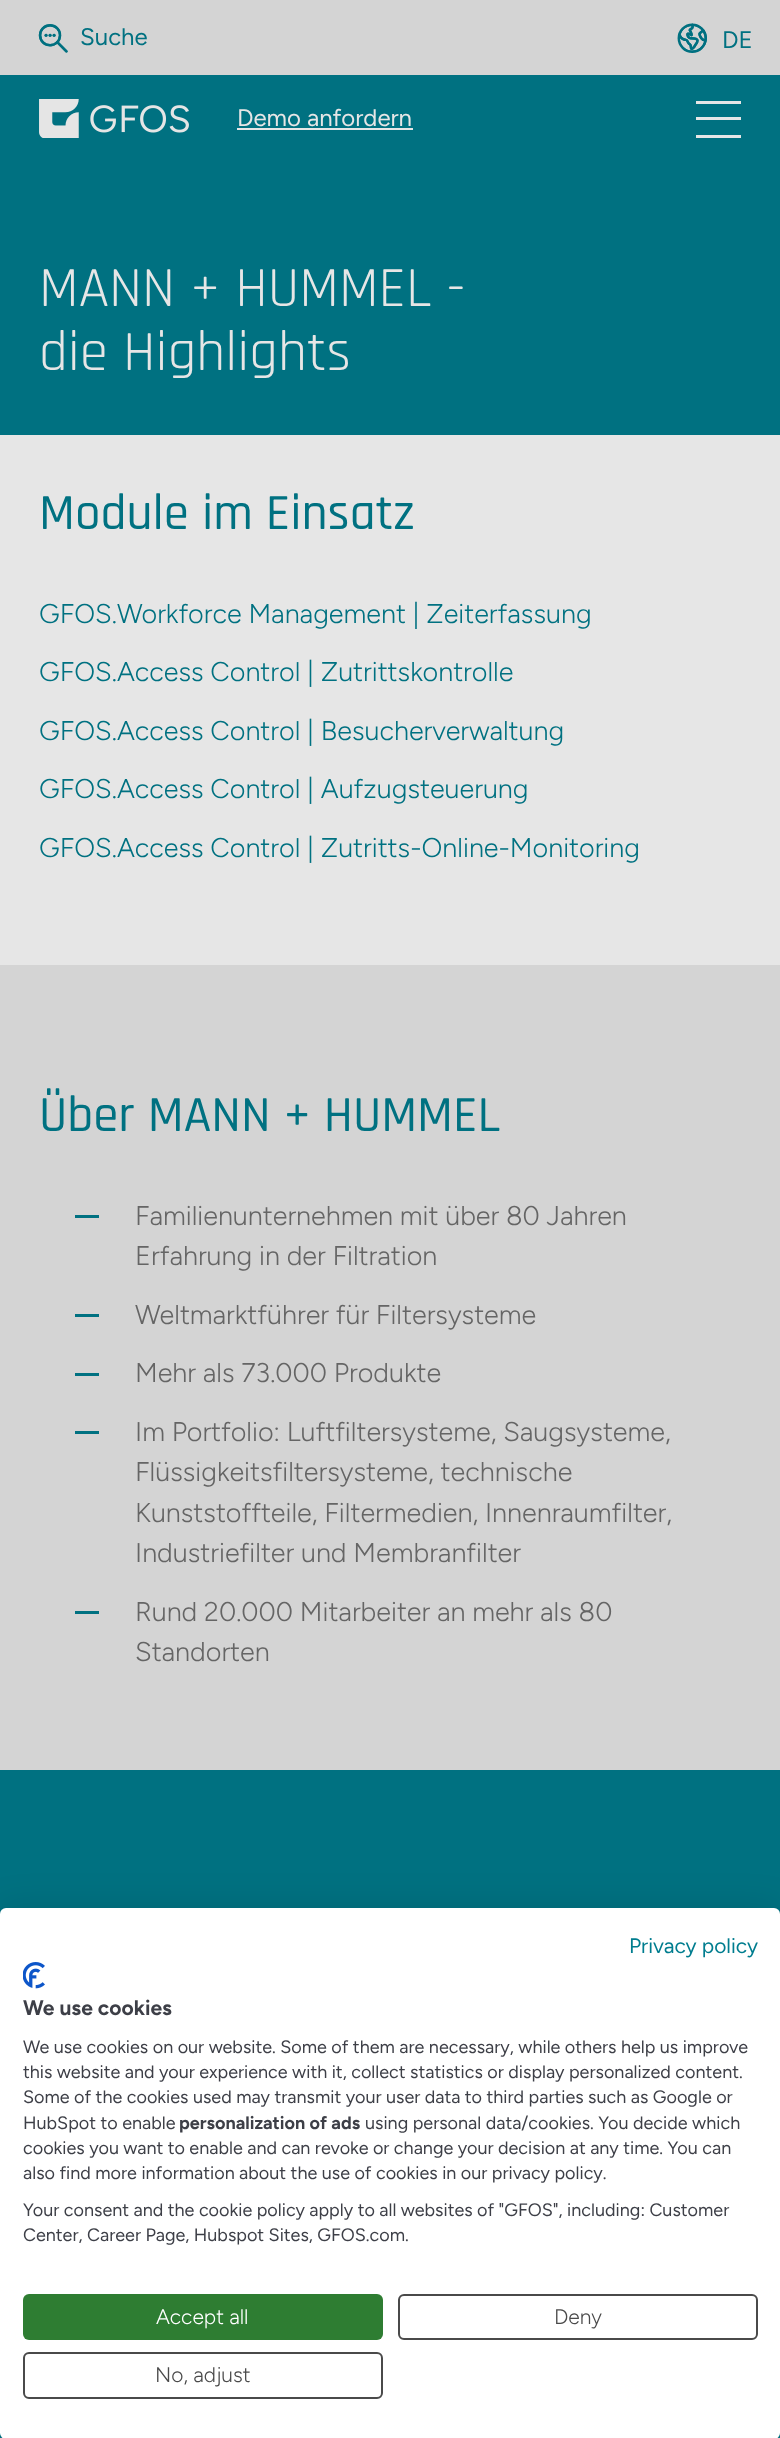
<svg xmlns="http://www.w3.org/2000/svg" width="780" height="2438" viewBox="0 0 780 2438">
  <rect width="100%" height="100%" fill="rgb(230,230,230)"/>
  <rect x="0" y="0" width="780" height="75" fill="rgb(212,212,212)"/>
  <image x="38" y="24" width="30" height="29" href="pic1.png"/>
  <text x="80" y="45" font-family="Figtree" font-size="24" fill="rgb(0,113,129)">Suche</text>
  <image x="677" y="23" width="30" height="30" href="pic2.png"/>
  <text x="722" y="48" font-family="Figtree" font-size="24" fill="rgb(0,113,129)">DE</text>
  <rect x="0" y="75" width="780" height="360" fill="rgb(0,113,129)"/>
  <image x="39" y="99" width="150" height="39" href="pic3.png"/>
  <text x="237" y="126" font-family="Figtree" font-size="24" fill="rgb(230,230,230)">Demo anfordern</text>
  <rect x="237" y="128" width="176" height="2" fill="rgb(230,230,230)"/>
  <rect x="696" y="101" width="45" height="3" fill="rgb(230,230,230)"/>
  <rect x="696" y="135" width="45" height="3" fill="rgb(230,230,230)"/>
  <rect x="696" y="117" width="45" height="3" fill="rgb(230,230,230)"/>
  <g font-family="Rajdhani" font-size="57" fill="rgb(230,230,230)">
    <text>
      <tspan x="39" y="306">MANN + HUMMEL -</tspan>
      <tspan x="39" y="370">die Highlights</tspan>
    </text>
  </g>
  <text x="39" y="529" font-family="Rajdhani" font-size="51" font-weight="500" fill="rgb(0,113,129)">Module im Einsatz</text>
  <g font-family="Figtree" font-size="27" font-weight="300" fill="rgb(0,113,129)">
    <text x="39" y="623">GFOS.Workforce Management | Zeiterfassung</text>
    <text x="39" y="681">GFOS.Access Control | Zutrittskontrolle</text>
    <text x="39" y="740">GFOS.Access Control | Besucherverwaltung</text>
    <text x="39" y="798">GFOS.Access Control | Aufzugsteuerung</text>
    <text x="39" y="857">GFOS.Access Control | Zutritts-Online-Monitoring</text>
  </g>
  <rect x="0" y="965" width="780" height="805" fill="rgb(212,212,212)"/>
  <text x="39" y="1131" font-family="Rajdhani" font-size="51" font-weight="500" fill="rgb(0,113,129)">Über MANN + HUMMEL</text>
  <rect x="75" y="1215" width="24" height="3" fill="rgb(0,113,129)"/>
  <g font-family="Figtree" font-size="27" font-weight="300" fill="rgb(101,101,101)">
    <text>
      <tspan x="135" y="1225">Familienunternehmen mit über 80 Jahren</tspan>
      <tspan x="135" y="1265">Erfahrung in der Filtration</tspan>
    </text>
  </g>
  <rect x="75" y="1314" width="24" height="3" fill="rgb(0,113,129)"/>
  <text x="135" y="1324" font-family="Figtree" font-size="27" font-weight="300" fill="rgb(101,101,101)">Weltmarktführer für Filtersysteme</text>
  <rect x="75" y="1373" width="24" height="3" fill="rgb(0,113,129)"/>
  <text x="135" y="1382" font-family="Figtree" font-size="27" font-weight="300" fill="rgb(101,101,101)">Mehr als 73.000 Produkte</text>
  <rect x="75" y="1431" width="24" height="3" fill="rgb(0,113,129)"/>
  <g font-family="Figtree" font-size="27" font-weight="300" fill="rgb(101,101,101)">
    <text>
      <tspan x="135" y="1441">Im Portfolio: Luftfiltersysteme, Saugsysteme,</tspan>
      <tspan x="135" y="1481">Flüssigkeitsfiltersysteme, technische</tspan>
      <tspan x="135" y="1522">Kunststoffteile, Filtermedien, Innenraumfilter,</tspan>
      <tspan x="135" y="1562">Industriefilter und Membranfilter</tspan>
    </text>
  </g>
  <rect x="75" y="1611" width="24" height="3" fill="rgb(0,113,129)"/>
  <g font-family="Figtree" font-size="27" font-weight="300" fill="rgb(101,101,101)">
    <text>
      <tspan x="135" y="1621">Rund 20.000 Mitarbeiter an mehr als 80</tspan>
      <tspan x="135" y="1661">Standorten</tspan>
    </text>
  </g>
  <rect x="0" y="1770" width="780" height="668" fill="rgb(0,113,129)"/>
  <rect x="0" y="1908" width="780" height="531" rx="6" fill="rgba(0,0,0,0.1)" filter="blur(18px)"/>
  <rect x="0" y="1908" width="780" height="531" rx="6" fill="rgb(255,255,255)"/>
  <text x="629" y="1953" font-family="Figtree" font-size="21" fill="rgb(0,125,143)">Privacy policy</text>
  <image x="23" y="1962" width="22" height="27" href="pic4.png"/>
  <text x="23" y="2015" font-family="Figtree" font-size="21" font-weight="bold" fill="rgb(61,63,71)">We use cookies</text>
  <g font-family="Figtree" font-size="18" fill="rgb(61,63,71)">
    <text>
      <tspan x="23" y="2053">We use cookies on our website. Some of them are necessary, while others help us improve</tspan>
      <tspan x="23" y="2078">this website and your experience with it, collect statistics or display personalized content.</tspan>
      <tspan x="23" y="2103">Some of the cookies used may transmit your user data to third parties such as Google or</tspan>
      <tspan x="23" y="2129">HubSpot to enable</tspan>
    </text>
  </g>
  <text x="179" y="2129" font-family="Figtree" font-size="18" font-weight="bold" fill="rgb(61,63,71)">personalization of ads</text>
  <g font-family="Figtree" font-size="18" fill="rgb(61,63,71)">
    <text x="365" y="2129">using personal data/cookies. You decide which</text>
    <text>
      <tspan x="23" y="2154">cookies you want to enable and can revoke or change your decision at any time. You can</tspan>
      <tspan x="23" y="2179">also find more information about the use of cookies in our privacy policy.</tspan>
    </text>
    <text>
      <tspan x="23" y="2216">Your consent and the cookie policy apply to all websites of "GFOS", including: Customer</tspan>
      <tspan x="23" y="2241">Center, Career Page, Hubspot Sites, GFOS.com.</tspan>
    </text>
  </g>
  <rect x="23" y="2294" width="360" height="46" rx="6" fill="rgb(46,125,50)"/>
  <text x="156" y="2324" font-family="Figtree" font-size="21" font-weight="300" fill="rgb(255,255,255)">Accept all</text>
  <rect x="399" y="2295" width="358" height="44" rx="5" fill="none" stroke="rgb(74,74,74)" stroke-width="2"/>
  <text x="554" y="2324" font-family="Figtree" font-size="21" font-weight="300" fill="rgb(74,74,74)">Deny</text>
  <rect x="24" y="2353" width="358" height="45" rx="5" fill="none" stroke="rgb(74,74,74)" stroke-width="2"/>
  <text x="155" y="2382" font-family="Figtree" font-size="21" font-weight="300" fill="rgb(74,74,74)">No, adjust</text>
</svg>
